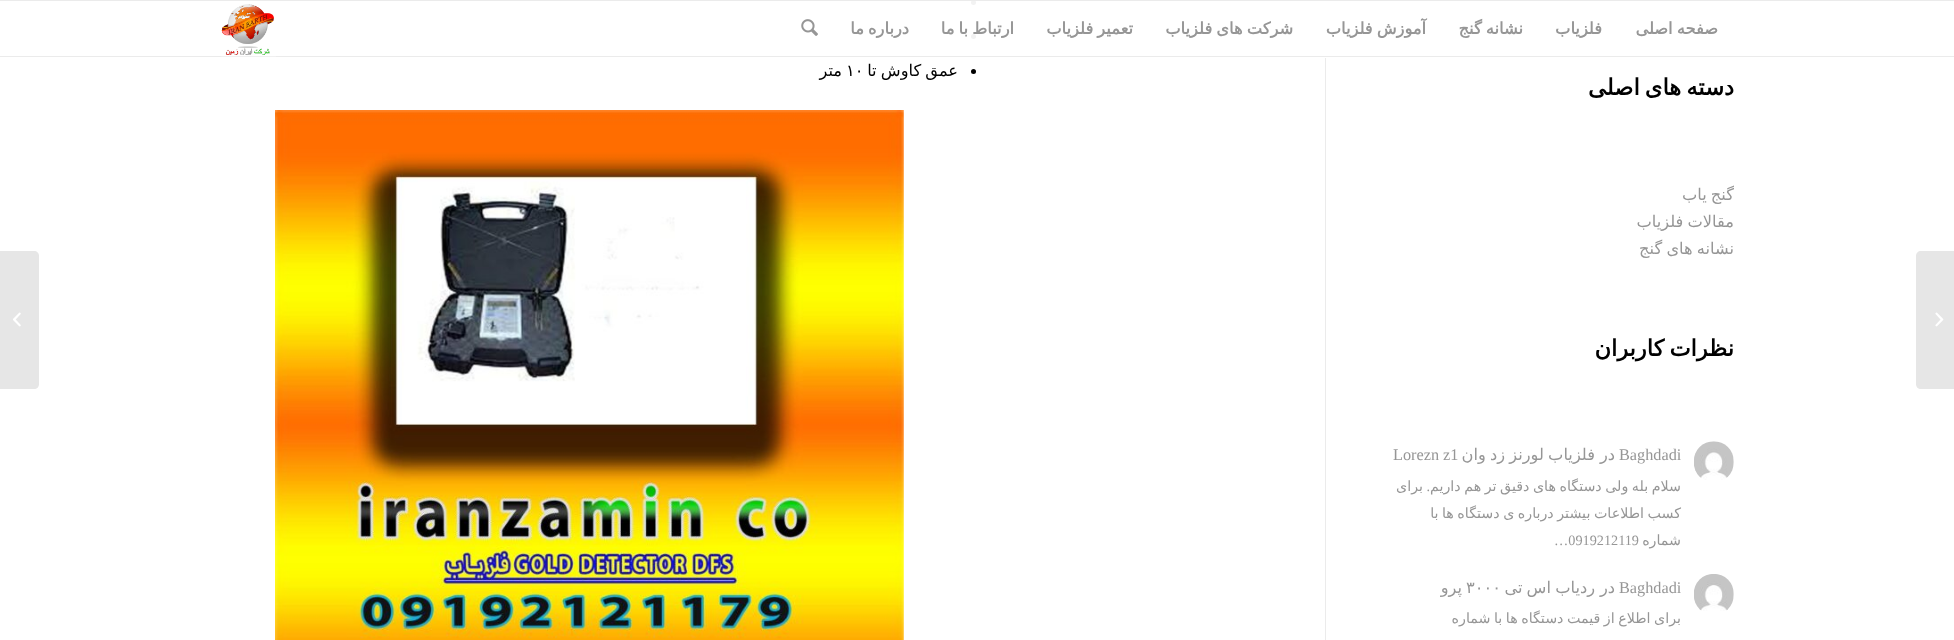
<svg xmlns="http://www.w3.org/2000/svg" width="1954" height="640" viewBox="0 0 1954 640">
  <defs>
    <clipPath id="clip1"><rect x="1326" y="0" width="408" height="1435"/></clipPath>
  </defs>
  <rect width="100%" height="100%" fill="rgb(255,255,255)"/>
  <circle cx="973.5" cy="2.5" r="2.5" fill="rgb(242,242,242)"/>
  <rect x="0" y="0" width="1954" height="1" fill="rgb(235,235,235)"/>
  <rect x="0" y="56" width="1954" height="1" fill="rgb(235,235,235)"/>
  <g font-family="DejaVu Sans" font-size="16.25" font-weight="bold" direction="rtl" fill="rgb(150,150,150)">
    <text x="1718" y="34" word-spacing="-1">صفحه اصلی</text>
    <text x="1602" y="34">فلزیاب</text>
    <text x="1523" y="34" word-spacing="-1">نشانه گنج</text>
    <text x="1426" y="34" word-spacing="-1">آموزش فلزیاب</text>
    <text x="1293" y="34" word-spacing="-1">شرکت های فلزیاب</text>
    <text x="1133" y="34" word-spacing="-1">تعمیر فلزیاب</text>
  </g>
  <circle cx="973.5" cy="36.5" r="2.5" fill="rgb(242,242,242)"/>
  <g font-family="DejaVu Sans" font-size="16.25" font-weight="bold" direction="rtl" fill="rgb(150,150,150)">
    <text x="1014" y="34" word-spacing="-1">ارتباط با ما</text>
    <text x="909" y="34" word-spacing="-1">درباره ما</text>
  </g>
  <image x="801" y="19" width="17" height="17" href="pic1.png"/>
  <image x="221" y="4" width="55" height="53" href="pic2.png"/>
  <path d="M1921 251H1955V389H1921C1918 389 1916 387 1916 384V256C1916 253 1918 251 1921 251Z" fill="rgb(230,230,230)"/>
  <image x="1935" y="312" width="9" height="15" href="pic3.png"/>
  <rect x="1325" y="58" width="1" height="582" fill="rgb(235,235,235)"/>
  <circle cx="973.5" cy="71.5" r="2.5" fill="rgb(0,0,0)"/>
  <text x="958" y="76" word-spacing="-1" font-family="DejaVu Sans" font-size="16.25" direction="rtl" fill="rgb(0,0,0)">عمق کاوش تا</text>
  <text x="846" y="76" font-family="DejaVu Sans" font-size="16.25" fill="rgb(0,0,0)">۱۰</text>
  <text x="842" y="76" font-family="DejaVu Sans" font-size="16.25" direction="rtl" fill="rgb(0,0,0)">متر</text>
  <image x="275" y="110" width="629" height="530" href="pic4.png"/>
  <g clip-path="url(#clip1)">
    <text x="1734" y="95" word-spacing="-2" font-family="DejaVu Sans" font-size="22.5" font-weight="bold" direction="rtl" fill="rgb(0,0,0)">دسته های اصلی</text>
    <text x="1734" y="200" word-spacing="-1" font-family="DejaVu Sans" font-size="16.25" direction="rtl" fill="rgb(150,150,150)">گنج یاب</text>
  </g>
  <text x="1734" y="227" word-spacing="-1" font-family="DejaVu Sans" font-size="16.25" direction="rtl" fill="rgb(150,150,150)">مقالات فلزیاب</text>
  <g clip-path="url(#clip1)">
    <text x="1734" y="254" word-spacing="-1" font-family="DejaVu Sans" font-size="16.25" direction="rtl" fill="rgb(150,150,150)">نشانه های گنج</text>
  </g>
  <text x="1734" y="356" word-spacing="-2" font-family="DejaVu Sans" font-size="22.5" font-weight="bold" direction="rtl" fill="rgb(0,0,0)">نظرات کاربران</text>
  <image x="1694" y="441" width="40" height="39" href="pic5.png"/>
  <text x="1619" y="460" font-family="Liberation Serif" font-size="16.25" fill="rgb(150,150,150)">Baghdadi</text>
  <g font-family="DejaVu Sans" font-size="16.25" direction="rtl" fill="rgb(150,150,150)">
    <text x="1615" y="460">در</text>
    <text x="1595" y="460" word-spacing="-1">فلزیاب لورنز زد وان</text>
  </g>
  <text x="1393" y="460" font-family="Liberation Serif" font-size="16.25" fill="rgb(150,150,150)">Lorezn z1</text>
  <text x="1681" y="491" word-spacing="-1" font-family="DejaVu Sans" font-size="14.25" direction="rtl" fill="rgb(150,150,150)">سلام بله ولی دستگاه های دقیق تر هم داریم</text>
  <text x="1430" y="491" font-family="Liberation Serif" font-size="14.25" direction="rtl" fill="rgb(150,150,150)">.</text>
  <g font-family="DejaVu Sans" font-size="14.25" direction="rtl" fill="rgb(150,150,150)">
    <text x="1423" y="491">برای</text>
    <text>
      <tspan x="1681" y="518" word-spacing="-1">کسب اطلاعات بیشتر درباره ی دستگاه ها با</tspan>
      <tspan x="1681" y="545">شماره</tspan>
    </text>
  </g>
  <text x="1554" y="545" font-family="Liberation Serif" font-size="14.25" fill="rgb(150,150,150)">…0919212119</text>
  <image x="1694" y="574" width="40" height="37" href="pic6.png"/>
  <text x="1619" y="593" font-family="Liberation Serif" font-size="16.25" fill="rgb(150,150,150)">Baghdadi</text>
  <g font-family="DejaVu Sans" font-size="16.25" direction="rtl" fill="rgb(150,150,150)">
    <text x="1615" y="593">در</text>
    <text x="1595" y="593" word-spacing="-1">ردیاب اس تی</text>
  </g>
  <text x="1466" y="593" font-family="DejaVu Sans" font-size="16.25" fill="rgb(150,150,150)">۳۰۰۰</text>
  <text x="1462" y="593" font-family="DejaVu Sans" font-size="16.25" direction="rtl" fill="rgb(150,150,150)">پرو</text>
  <text x="1681" y="623" word-spacing="-1" font-family="DejaVu Sans" font-size="14.25" direction="rtl" fill="rgb(150,150,150)">برای اطلاع از قیمت دستگاه ها با شماره</text>
  <path d="M0 251H34C37 251 39 253 39 256V384C39 387 37 389 34 389H0Z" fill="rgb(230,230,230)"/>
  <image x="13" y="312" width="8" height="15" href="pic7.png"/>
</svg>
